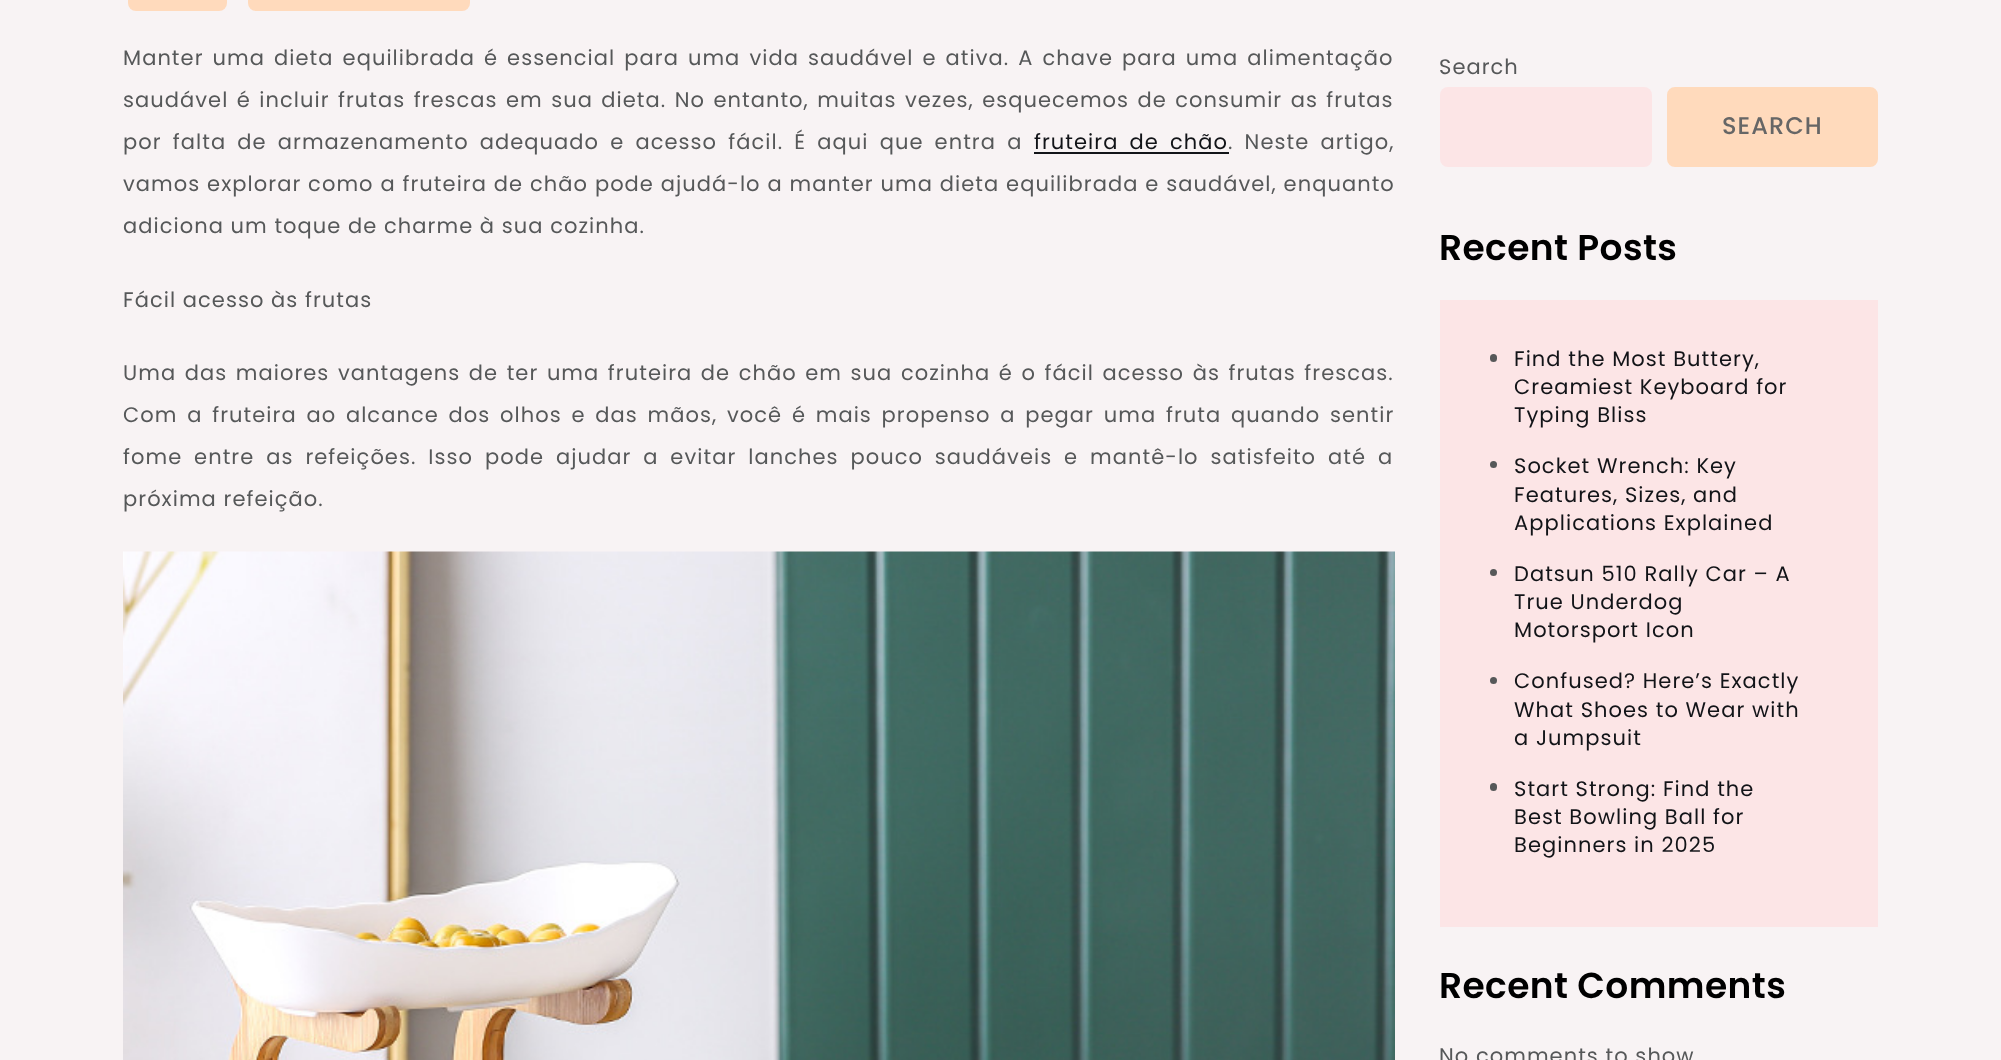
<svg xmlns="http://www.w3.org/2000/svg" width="2001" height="1060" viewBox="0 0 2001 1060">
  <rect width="100%" height="100%" fill="rgb(248,243,244)"/>
  <rect x="128" y="-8" width="99" height="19" rx="8" fill="rgb(255,218,188)"/>
  <rect x="248" y="-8" width="222" height="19" rx="8" fill="rgb(255,218,188)"/>
  <g font-family="Poppins" font-size="21" letter-spacing="1.05" fill="rgb(86,88,89)">
    <text x="123" y="65" word-spacing="2.4">Manter uma dieta equilibrada é essencial para uma vida saudável e ativa. A chave para uma alimentação</text>
    <text x="123" y="107" word-spacing="1.75">saudável é incluir frutas frescas em sua dieta. No entanto, muitas vezes, esquecemos de consumir as frutas</text>
    <text x="123" y="149" word-spacing="4.5">por falta de armazenamento adequado e acesso fácil. É aqui que entra a</text>
  </g>
  <text x="1034" y="149" word-spacing="4.5" font-family="Poppins" font-size="21" letter-spacing="1.05" fill="rgb(18,20,24)">fruteira de chão</text>
  <rect x="1034" y="152" width="195" height="2" fill="rgb(18,20,24)"/>
  <g font-family="Poppins" font-size="21" letter-spacing="1.05" fill="rgb(86,88,89)">
    <text x="1228" y="149" word-spacing="4.5">. Neste artigo,</text>
    <text x="123" y="191" word-spacing="0.2">vamos explorar como a fruteira de chão pode ajudá-lo a manter uma dieta equilibrada e saudável, enquanto</text>
    <text x="123" y="233">adiciona um toque de charme à sua cozinha.</text>
    <text x="123" y="307">Fácil acesso às frutas</text>
    <text x="123" y="380" word-spacing="1.9">Uma das maiores vantagens de ter uma fruteira de chão em sua cozinha é o fácil acesso às frutas frescas.</text>
    <text x="123" y="422" word-spacing="3.1">Com a fruteira ao alcance dos olhos e das mãos, você é mais propenso a pegar uma fruta quando sentir</text>
    <text x="123" y="464" word-spacing="5.25">fome entre as refeições. Isso pode ajudar a evitar lanches pouco saudáveis e mantê-lo satisfeito até a</text>
    <text x="123" y="506">próxima refeição.</text>
  </g>
  <image x="123" y="551" width="1272" height="509" href="pic1.png"/>
  <text x="1439" y="74" font-family="Poppins" font-size="21" letter-spacing="1.05" fill="rgb(86,88,89)">Search</text>
  <rect x="1440" y="87" width="212" height="80" rx="8" fill="rgb(252,229,230)"/>
  <rect x="1668.5" y="88.5" width="208" height="77" rx="6.5" fill="rgb(255,218,188)" stroke="rgb(255,218,188)" stroke-width="3"/>
  <text x="1722" y="134" font-family="Poppins" font-size="24" font-weight="500" letter-spacing="1.05" fill="rgb(102,102,102)">SEARCH</text>
  <text x="1439" y="260" font-family="Poppins" font-size="36" font-weight="600" letter-spacing="0.4" fill="rgb(0,0,0)">Recent Posts</text>
  <rect x="1440" y="300" width="438" height="627" fill="rgb(252,229,230)"/>
  <rect x="1490" y="354" width="7" height="8" rx="3.5" fill="rgb(86,88,89)"/>
  <g font-family="Poppins" font-size="21" letter-spacing="1.05" fill="rgb(18,20,24)">
    <text>
      <tspan x="1514" y="366">Find the Most Buttery,</tspan>
      <tspan x="1514" y="394">Creamiest Keyboard for</tspan>
      <tspan x="1514" y="422">Typing Bliss</tspan>
    </text>
  </g>
  <circle cx="1493.5" cy="464.5" r="3.5" fill="rgb(86,88,89)"/>
  <g font-family="Poppins" font-size="21" letter-spacing="1.05" fill="rgb(18,20,24)">
    <text>
      <tspan x="1514" y="473">Socket Wrench: Key</tspan>
      <tspan x="1514" y="502">Features, Sizes, and</tspan>
      <tspan x="1514" y="530">Applications Explained</tspan>
    </text>
  </g>
  <circle cx="1493.5" cy="572.5" r="3.5" fill="rgb(86,88,89)"/>
  <g font-family="Poppins" font-size="21" letter-spacing="1.05" fill="rgb(18,20,24)">
    <text>
      <tspan x="1514" y="581">Datsun 510 Rally Car – A</tspan>
      <tspan x="1514" y="609">True Underdog</tspan>
      <tspan x="1514" y="637">Motorsport Icon</tspan>
    </text>
  </g>
  <circle cx="1493.5" cy="680.5" r="3.5" fill="rgb(86,88,89)"/>
  <g font-family="Poppins" font-size="21" letter-spacing="1.05" fill="rgb(18,20,24)">
    <text>
      <tspan x="1514" y="688">Confused? Here’s Exactly</tspan>
      <tspan x="1514" y="717">What Shoes to Wear with</tspan>
      <tspan x="1514" y="745">a Jumpsuit</tspan>
    </text>
  </g>
  <rect x="1490" y="783" width="7" height="8" rx="3.5" fill="rgb(86,88,89)"/>
  <g font-family="Poppins" font-size="21" letter-spacing="1.05" fill="rgb(18,20,24)">
    <text>
      <tspan x="1514" y="796">Start Strong: Find the</tspan>
      <tspan x="1514" y="824">Best Bowling Ball for</tspan>
      <tspan x="1514" y="852">Beginners in 2025</tspan>
    </text>
  </g>
  <text x="1439" y="998" font-family="Poppins" font-size="36" font-weight="600" letter-spacing="0.4" fill="rgb(0,0,0)">Recent Comments</text>
  <text x="1439" y="1063" font-family="Poppins" font-size="21" letter-spacing="1.05" fill="rgb(86,88,89)">No comments to show</text>
</svg>
